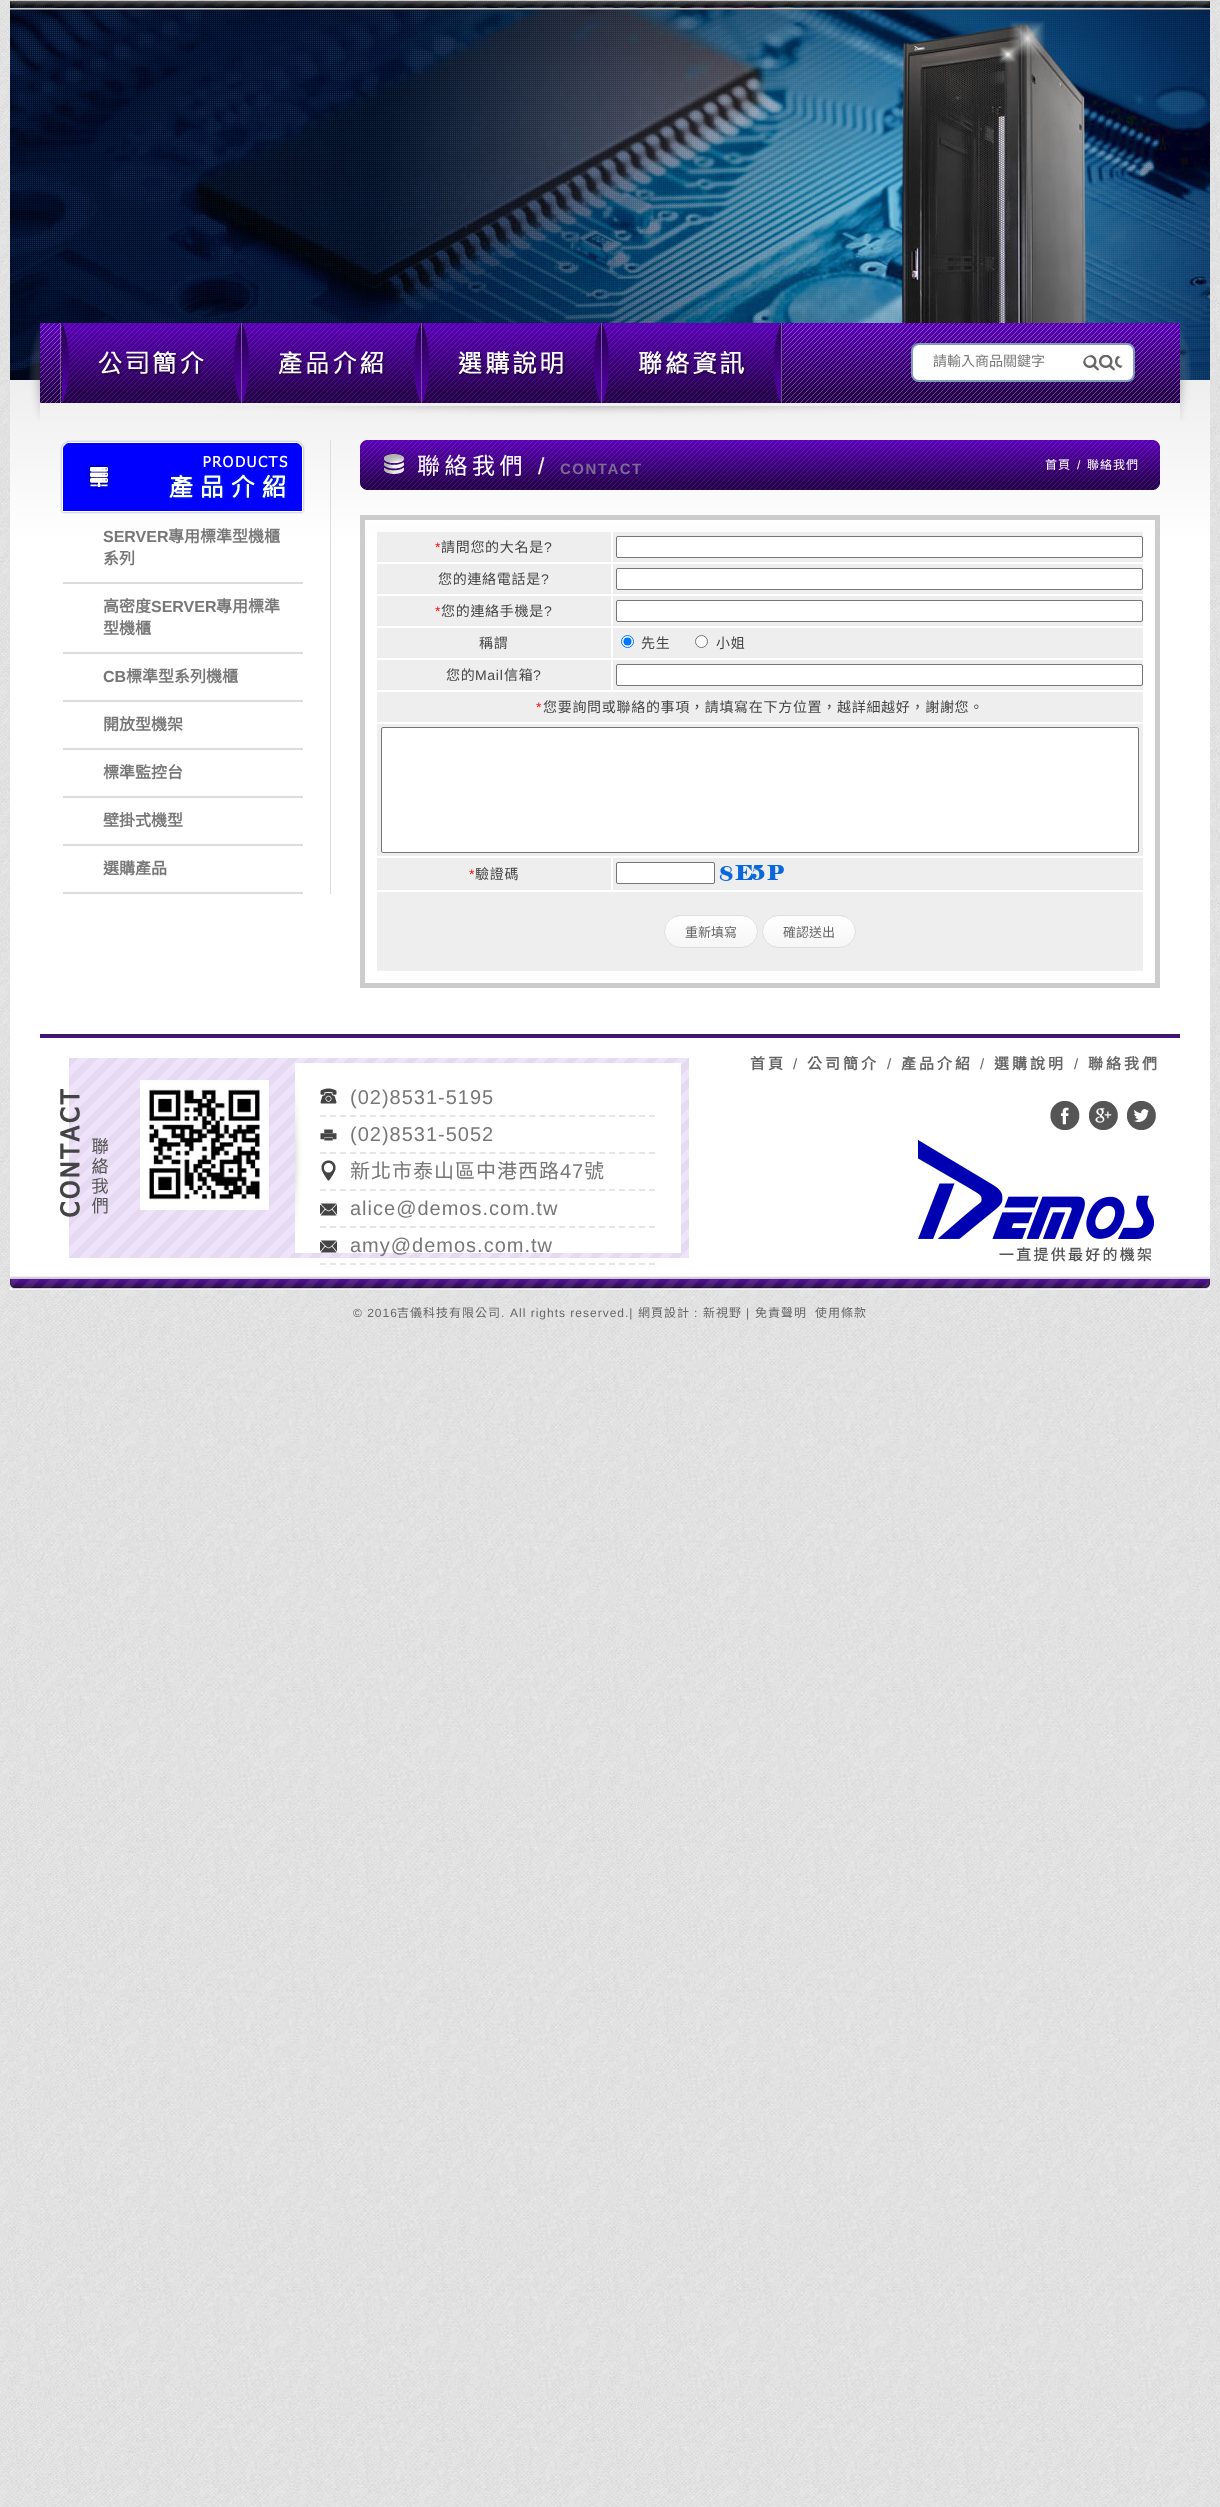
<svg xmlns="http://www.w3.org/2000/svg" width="1220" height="2507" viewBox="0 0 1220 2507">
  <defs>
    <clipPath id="clip1"><rect x="664" y="915" width="94" height="33" rx="16.5"/></clipPath>
    <linearGradient id="g1" gradientUnits="userSpaceOnUse" x1="711" y1="916" x2="711" y2="947"><stop offset="0.05" stop-color="rgb(255,255,255)"/><stop offset="1" stop-color="rgb(246,246,246)"/></linearGradient>
    <clipPath id="clip2"><rect x="762" y="915" width="94" height="33" rx="16.5"/></clipPath>
    <linearGradient id="g2" gradientUnits="userSpaceOnUse" x1="809" y1="916" x2="809" y2="947"><stop offset="0.05" stop-color="rgb(255,255,255)"/><stop offset="1" stop-color="rgb(246,246,246)"/></linearGradient>
  </defs>
  <rect width="100%" height="100%" fill="rgb(255,255,255)"/>
  <image x="0" y="0" width="1220" height="2507" href="pic1.png"/>
  <image x="10" y="0" width="1200" height="10" href="pic2.png"/>
  <image x="10" y="10" width="1200" height="370" href="pic3.png"/>
  <image x="10" y="380" width="1200" height="658" href="pic10.png"/>
  <image x="29" y="323" width="1162" height="98" href="pic4.png"/>
  <image x="60" y="323" width="182" height="80" href="pic5.png"/>
  <image x="242" y="323" width="180" height="80" href="pic6.png"/>
  <image x="422" y="323" width="180" height="80" href="pic7.png"/>
  <image x="602" y="323" width="181" height="80" href="pic8.png"/>
  <rect x="912" y="344" width="222" height="37" rx="7" fill="rgb(255,255,255)" stroke="rgb(127,157,185)" stroke-width="2"/>
  <text x="933" y="366" font-family="Noto Sans CJK TC" font-size="14" fill="rgb(119,119,119)">請輸入商品關鍵字</text>
  <image x="1083" y="354" width="40" height="17" href="pic9.png"/>
  <path d="M1092 355H1114C1119 355 1123 359 1123 363C1124 352 1110 354 1103 354C1096 354 1082 352 1083 363C1083 359 1087 355 1092 355Z" fill="rgb(255,255,255)"/>
  <rect x="330" y="440" width="1" height="454" fill="rgb(221,221,221)"/>
  <image x="60" y="440" width="245" height="74" href="pic11.png"/>
  <rect x="63" y="582" width="240" height="2" fill="rgb(221,221,221)"/>
  <text x="103" y="542" font-family="Liberation Sans" font-size="16" font-weight="bold" fill="rgb(119,119,119)">SERVER</text>
  <g font-family="Noto Sans CJK TC" font-size="16" font-weight="bold" fill="rgb(119,119,119)">
    <text x="168" y="542">專用標準型機櫃</text>
    <text x="103" y="564">系列</text>
  </g>
  <rect x="63" y="652" width="240" height="2" fill="rgb(221,221,221)"/>
  <text x="103" y="612" font-family="Noto Sans CJK TC" font-size="16" font-weight="bold" fill="rgb(119,119,119)">高密度</text>
  <text x="151" y="612" font-family="Liberation Sans" font-size="16" font-weight="bold" fill="rgb(119,119,119)">SERVER</text>
  <g font-family="Noto Sans CJK TC" font-size="16" font-weight="bold" fill="rgb(119,119,119)">
    <text x="216" y="612">專用標準</text>
    <text x="103" y="634">型機櫃</text>
  </g>
  <rect x="63" y="700" width="240" height="2" fill="rgb(221,221,221)"/>
  <text x="103" y="682" font-family="Liberation Sans" font-size="16" font-weight="bold" fill="rgb(119,119,119)">CB</text>
  <text x="126" y="682" font-family="Noto Sans CJK TC" font-size="16" font-weight="bold" fill="rgb(119,119,119)">標準型系列機櫃</text>
  <rect x="63" y="748" width="240" height="2" fill="rgb(221,221,221)"/>
  <text x="103" y="730" font-family="Noto Sans CJK TC" font-size="16" font-weight="bold" fill="rgb(119,119,119)">開放型機架</text>
  <rect x="63" y="796" width="240" height="2" fill="rgb(221,221,221)"/>
  <text x="103" y="778" font-family="Noto Sans CJK TC" font-size="16" font-weight="bold" fill="rgb(119,119,119)">標準監控台</text>
  <rect x="63" y="844" width="240" height="2" fill="rgb(221,221,221)"/>
  <text x="103" y="826" font-family="Noto Sans CJK TC" font-size="16" font-weight="bold" fill="rgb(119,119,119)">壁掛式機型</text>
  <rect x="63" y="892" width="240" height="2" fill="rgb(221,221,221)"/>
  <text x="103" y="874" font-family="Noto Sans CJK TC" font-size="16" font-weight="bold" fill="rgb(119,119,119)">選購產品</text>
  <image x="360" y="440" width="800" height="50" href="pic12.png"/>
  <text x="417" y="474" font-family="Noto Sans CJK TC" font-size="23" letter-spacing="4.5" fill="rgb(255,255,255)">聯絡我們</text>
  <text x="538" y="474" font-family="Liberation Sans" font-size="23" letter-spacing="4.5" fill="rgb(255,255,255)">/</text>
  <text x="560" y="474" font-family="Liberation Sans" font-size="15" font-weight="bold" letter-spacing="1.5" fill="rgb(123,109,148)">CONTACT</text>
  <text x="1045" y="469" font-family="Noto Sans CJK TC" font-size="12" letter-spacing="1" fill="rgb(255,255,255)">首頁</text>
  <text x="1077" y="469" font-family="Liberation Sans" font-size="12" letter-spacing="1" fill="rgb(255,255,255)">/</text>
  <text x="1087" y="469" font-family="Noto Sans CJK TC" font-size="12" letter-spacing="1" fill="rgb(255,255,255)">聯絡我們</text>
  <rect x="366" y="520" width="789" height="5" fill="rgb(255,255,255)"/>
  <rect x="362.5" y="517.5" width="795" height="468" fill="none" stroke="rgb(204,204,204)" stroke-width="5"/>
  <rect x="377" y="532" width="234" height="30" fill="rgb(238,238,238)"/>
  <text x="435" y="552" font-family="Liberation Sans" font-size="14" letter-spacing="0.7" fill="rgb(255,0,0)">*</text>
  <text x="441" y="552" font-family="Noto Sans CJK TC" font-size="14" letter-spacing="0.7" fill="rgb(68,68,68)">請問您的大名是</text>
  <text x="544" y="552" font-family="Liberation Sans" font-size="14" letter-spacing="0.7" fill="rgb(68,68,68)">?</text>
  <rect x="613" y="532" width="530" height="30" fill="rgb(238,238,238)"/>
  <rect x="616.5" y="536.5" width="526" height="21" rx="1.5" fill="rgb(255,255,255)" stroke="rgb(118,118,118)"/>
  <rect x="377" y="564" width="234" height="30" fill="rgb(238,238,238)"/>
  <text x="438" y="584" font-family="Noto Sans CJK TC" font-size="14" letter-spacing="0.7" fill="rgb(68,68,68)">您的連絡電話是</text>
  <text x="541" y="584" font-family="Liberation Sans" font-size="14" letter-spacing="0.7" fill="rgb(68,68,68)">?</text>
  <rect x="613" y="564" width="530" height="30" fill="rgb(238,238,238)"/>
  <rect x="616.5" y="568.5" width="526" height="21" rx="1.5" fill="rgb(255,255,255)" stroke="rgb(118,118,118)"/>
  <rect x="377" y="596" width="234" height="30" fill="rgb(238,238,238)"/>
  <text x="435" y="616" font-family="Liberation Sans" font-size="14" letter-spacing="0.7" fill="rgb(255,0,0)">*</text>
  <text x="441" y="616" font-family="Noto Sans CJK TC" font-size="14" letter-spacing="0.7" fill="rgb(68,68,68)">您的連絡手機是</text>
  <text x="544" y="616" font-family="Liberation Sans" font-size="14" letter-spacing="0.7" fill="rgb(68,68,68)">?</text>
  <rect x="613" y="596" width="530" height="30" fill="rgb(238,238,238)"/>
  <rect x="616.5" y="600.5" width="526" height="21" rx="1.5" fill="rgb(255,255,255)" stroke="rgb(118,118,118)"/>
  <rect x="377" y="628" width="234" height="30" fill="rgb(238,238,238)"/>
  <text x="479" y="648" font-family="Noto Sans CJK TC" font-size="14" letter-spacing="0.7" fill="rgb(68,68,68)">稱謂</text>
  <rect x="613" y="628" width="530" height="30" fill="rgb(238,238,238)"/>
  <circle cx="627.5" cy="641.5" r="6" fill="rgb(255,255,255)" stroke="rgb(0,117,255)"/>
  <circle cx="627.5" cy="641.5" r="4" fill="rgb(0,117,255)"/>
  <text x="641" y="648" font-family="Noto Sans CJK TC" font-size="14" letter-spacing="0.7" fill="rgb(68,68,68)">先生</text>
  <circle cx="701.5" cy="641.5" r="6" fill="rgb(255,255,255)" stroke="rgb(118,118,118)"/>
  <text x="716" y="648" font-family="Noto Sans CJK TC" font-size="14" letter-spacing="0.7" fill="rgb(68,68,68)">小姐</text>
  <rect x="377" y="660" width="234" height="30" fill="rgb(238,238,238)"/>
  <text x="446" y="680" font-family="Noto Sans CJK TC" font-size="14" letter-spacing="0.7" fill="rgb(68,68,68)">您的</text>
  <text x="475" y="680" font-family="Liberation Sans" font-size="14" letter-spacing="0.7" fill="rgb(68,68,68)">Mail</text>
  <text x="504" y="680" font-family="Noto Sans CJK TC" font-size="14" letter-spacing="0.7" fill="rgb(68,68,68)">信箱</text>
  <text x="533" y="680" font-family="Liberation Sans" font-size="14" letter-spacing="0.7" fill="rgb(68,68,68)">?</text>
  <rect x="613" y="660" width="530" height="30" fill="rgb(238,238,238)"/>
  <rect x="616.5" y="664.5" width="526" height="21" rx="1.5" fill="rgb(255,255,255)" stroke="rgb(118,118,118)"/>
  <rect x="377" y="692" width="766" height="30" fill="rgb(238,238,238)"/>
  <text x="536" y="712" font-family="Liberation Sans" font-size="14" letter-spacing="0.7" fill="rgb(255,0,0)">*</text>
  <text x="543" y="712" font-family="Noto Sans CJK TC" font-size="14" letter-spacing="0.7" fill="rgb(68,68,68)">您要詢問或聯絡的事項，請填寫在下方位置，越詳細越好，謝謝您。</text>
  <rect x="377" y="724" width="766" height="132" fill="rgb(238,238,238)"/>
  <rect x="381.5" y="727.5" width="757" height="125" rx="1.5" fill="rgb(255,255,255)" stroke="rgb(118,118,118)"/>
  <rect x="377" y="858" width="234" height="32" fill="rgb(238,238,238)"/>
  <text x="469" y="879" font-family="Liberation Sans" font-size="14" letter-spacing="0.7" fill="rgb(255,0,0)">*</text>
  <text x="475" y="879" font-family="Noto Sans CJK TC" font-size="14" letter-spacing="0.7" fill="rgb(68,68,68)">驗證碼</text>
  <rect x="613" y="858" width="530" height="32" fill="rgb(238,238,238)"/>
  <rect x="616.5" y="862.5" width="98" height="21" rx="1.5" fill="rgb(255,255,255)" stroke="rgb(118,118,118)"/>
  <image x="719" y="865" width="65" height="16" href="pic13.png"/>
  <rect x="377" y="892" width="766" height="79" fill="rgb(238,238,238)"/>
  <g clip-path="url(#clip1)">
    <rect x="664" y="916" width="94" height="31" fill="url(#g1)"/>
  </g>
  <rect x="664.5" y="915.5" width="93" height="32" rx="16" fill="none" stroke="rgb(220,220,220)"/>
  <text x="685" y="937" font-family="Noto Sans CJK TC" font-size="13" fill="rgb(102,102,102)">重新填寫</text>
  <g clip-path="url(#clip2)">
    <rect x="762" y="916" width="94" height="31" fill="url(#g2)"/>
  </g>
  <rect x="762.5" y="915.5" width="93" height="32" rx="16" fill="none" stroke="rgb(220,220,220)"/>
  <text x="783" y="937" font-family="Noto Sans CJK TC" font-size="13" fill="rgb(102,102,102)">確認送出</text>
  <rect x="10" y="1038" width="1200" height="252" fill="rgb(255,255,255)"/>
  <image x="10" y="1276" width="1200" height="14" href="pic14.png"/>
  <text x="750" y="1069" font-family="Noto Sans CJK TC" font-size="15" font-weight="bold" letter-spacing="3" fill="rgb(102,102,102)">首頁</text>
  <text x="793" y="1069" font-family="Liberation Sans" font-size="15" letter-spacing="3" fill="rgb(102,102,102)">/</text>
  <text x="807" y="1069" font-family="Noto Sans CJK TC" font-size="15" font-weight="bold" letter-spacing="3" fill="rgb(102,102,102)">公司簡介</text>
  <text x="887" y="1069" font-family="Liberation Sans" font-size="15" letter-spacing="3" fill="rgb(102,102,102)">/</text>
  <text x="901" y="1069" font-family="Noto Sans CJK TC" font-size="15" font-weight="bold" letter-spacing="3" fill="rgb(102,102,102)">產品介紹</text>
  <text x="980" y="1069" font-family="Liberation Sans" font-size="15" letter-spacing="3" fill="rgb(102,102,102)">/</text>
  <text x="994" y="1069" font-family="Noto Sans CJK TC" font-size="15" font-weight="bold" letter-spacing="3" fill="rgb(102,102,102)">選購說明</text>
  <text x="1074" y="1069" font-family="Liberation Sans" font-size="15" letter-spacing="3" fill="rgb(102,102,102)">/</text>
  <text x="1088" y="1069" font-family="Noto Sans CJK TC" font-size="15" font-weight="bold" letter-spacing="3" fill="rgb(102,102,102)">聯絡我們</text>
  <image x="60" y="1058" width="629" height="200" href="pic15.png"/>
  <image x="140" y="1080" width="129" height="130" href="pic16.png"/>
  <image x="320" y="1088" width="17" height="16" href="pic17.png"/>
  <path d="M320 1116H655" fill="none" stroke="rgb(230,230,230)" stroke-width="2" stroke-dasharray="6 3.97"/>
  <text x="350" y="1104" font-family="Liberation Sans" font-size="20" letter-spacing="1" fill="rgb(119,119,119)">(02)8531-5195</text>
  <image x="320" y="1129" width="17" height="12" href="pic18.png"/>
  <path d="M320 1153H655" fill="none" stroke="rgb(230,230,230)" stroke-width="2" stroke-dasharray="6 3.97"/>
  <text x="350" y="1141" font-family="Liberation Sans" font-size="20" letter-spacing="1" fill="rgb(119,119,119)">(02)8531-5052</text>
  <image x="321" y="1160" width="15" height="21" href="pic19.png"/>
  <path d="M320 1190H655" fill="none" stroke="rgb(230,230,230)" stroke-width="2" stroke-dasharray="6 3.97"/>
  <text x="350" y="1178" font-family="Noto Sans CJK TC" font-size="20" letter-spacing="1" fill="rgb(119,119,119)">新北市泰山區中港西路</text>
  <text x="560" y="1178" font-family="Liberation Sans" font-size="20" letter-spacing="1" fill="rgb(119,119,119)">47</text>
  <text x="584" y="1178" font-family="Noto Sans CJK TC" font-size="20" letter-spacing="1" fill="rgb(119,119,119)">號</text>
  <image x="320" y="1203" width="17" height="13" href="pic20.png"/>
  <path d="M320 1227H655" fill="none" stroke="rgb(230,230,230)" stroke-width="2" stroke-dasharray="6 3.97"/>
  <text x="350" y="1215" font-family="Liberation Sans" font-size="20" letter-spacing="1" fill="rgb(119,119,119)">alice@demos.com.tw</text>
  <image x="320" y="1240" width="17" height="13" href="pic20.png"/>
  <path d="M320 1264H655" fill="none" stroke="rgb(230,230,230)" stroke-width="2" stroke-dasharray="6 3.97"/>
  <text x="350" y="1252" font-family="Liberation Sans" font-size="20" letter-spacing="1" fill="rgb(119,119,119)">amy@demos.com.tw</text>
  <image x="1050" y="1101" width="30" height="29" href="pic21.png"/>
  <image x="1089" y="1101" width="29" height="29" href="pic22.png"/>
  <image x="1127" y="1101" width="29" height="29" href="pic23.png"/>
  <image x="918" y="1140" width="236" height="122" href="pic24.png"/>
  <text x="353" y="1317" font-family="Liberation Sans" font-size="12" letter-spacing="1" fill="rgb(102,102,102)">© 2016</text>
  <text x="397" y="1317" font-family="Noto Sans CJK TC" font-size="12" letter-spacing="1" fill="rgb(102,102,102)">吉儀科技有限公司</text>
  <g font-family="Liberation Sans" font-size="12" letter-spacing="1" fill="rgb(102,102,102)">
    <text x="501" y="1317">.</text>
    <text x="510" y="1317">All rights reserved.|</text>
  </g>
  <text x="638" y="1317" font-family="Noto Sans CJK TC" font-size="12" letter-spacing="1" fill="rgb(102,102,102)">網頁設計</text>
  <text x="694" y="1317" font-family="Liberation Sans" font-size="12" letter-spacing="1" fill="rgb(102,102,102)">:</text>
  <text x="703" y="1317" font-family="Noto Sans CJK TC" font-size="12" letter-spacing="1" fill="rgb(102,102,102)">新視野</text>
  <text x="746" y="1317" font-family="Liberation Sans" font-size="12" letter-spacing="1" fill="rgb(102,102,102)">|</text>
  <g font-family="Noto Sans CJK TC" font-size="12" letter-spacing="1" fill="rgb(102,102,102)">
    <text x="755" y="1317">免責聲明</text>
    <text x="815" y="1317">使用條款</text>
  </g>
</svg>
